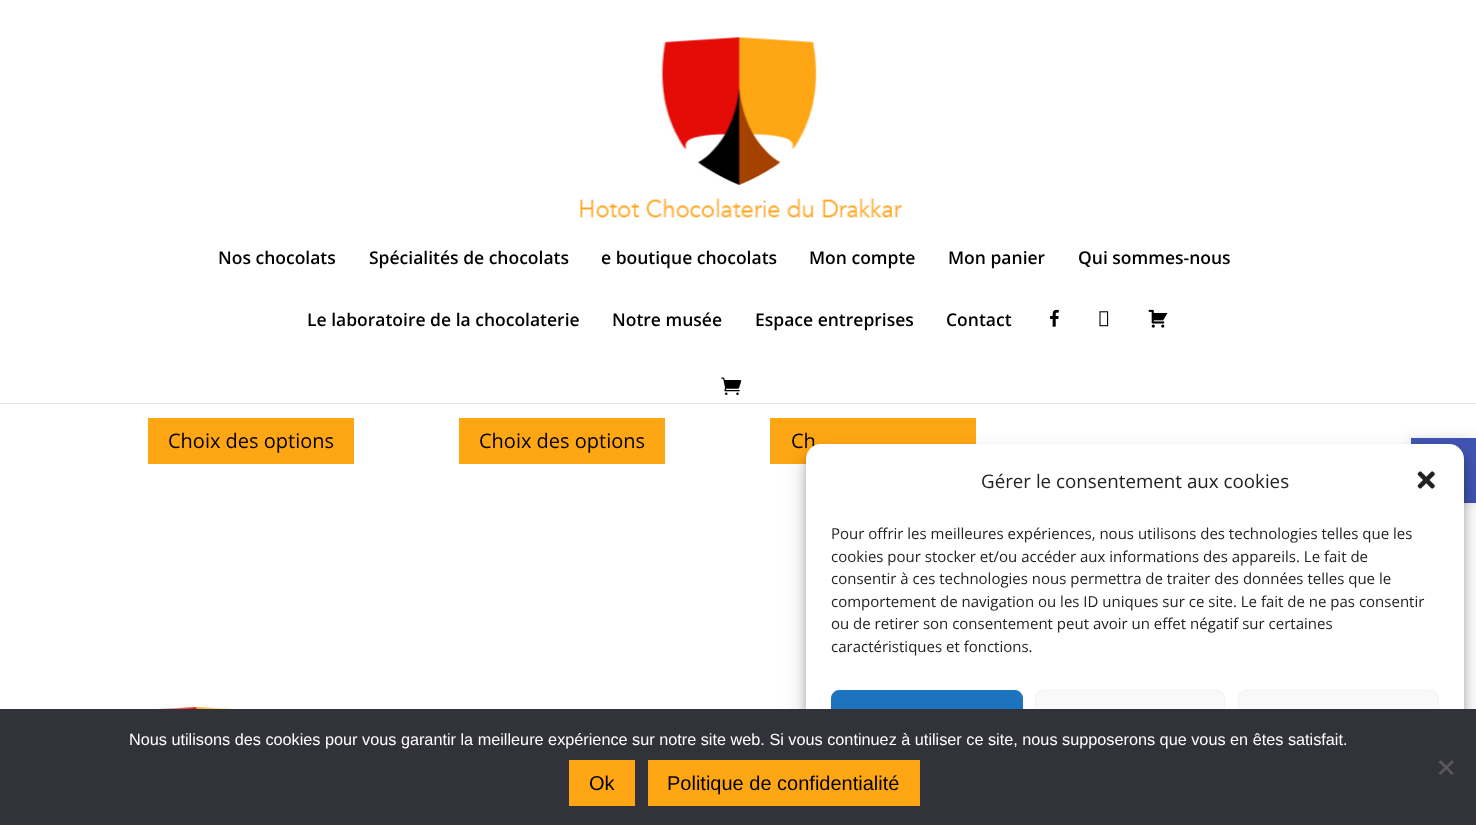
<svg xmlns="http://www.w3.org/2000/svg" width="1476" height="825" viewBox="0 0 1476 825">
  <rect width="100%" height="100%" fill="rgb(255,255,255)"/>
  <rect x="0" y="403" width="1476" height="1" fill="rgb(230,230,230)"/>
  <image x="579" y="37" width="324" height="181" href="pic1.png"/>
  <g font-family="Open Sans" font-size="17.5" font-weight="600" fill="rgb(0,0,0)">
    <text x="218" y="264">Nos chocolats</text>
    <text x="369" y="264">Spécialités de chocolats</text>
    <text x="601" y="264">e boutique chocolats</text>
    <text x="809" y="264">Mon compte</text>
    <text x="948" y="264">Mon panier</text>
    <text x="1078" y="264">Qui sommes-nous</text>
    <text x="307" y="326">Le laboratoire de la chocolaterie</text>
    <text x="612" y="326">Notre musée</text>
    <text x="755" y="326">Espace entreprises</text>
    <text x="946" y="326">Contact</text>
  </g>
  <image x="1050" y="309" width="9" height="18" href="pic2.png"/>
  <image x="1099" y="311" width="10" height="16" href="pic3.png"/>
  <image x="1148" y="309" width="20" height="19" href="pic4.png"/>
  <image x="721" y="377" width="21" height="18" href="pic5.png"/>
  <rect x="148" y="418" width="206" height="46" fill="rgb(255,166,20)"/>
  <text x="168" y="448" font-family="Open Sans" font-size="20" fill="rgb(0,0,0)">Choix des options</text>
  <rect x="459" y="418" width="206" height="46" fill="rgb(255,166,20)"/>
  <text x="479" y="448" font-family="Open Sans" font-size="20" fill="rgb(0,0,0)">Choix des options</text>
  <rect x="770" y="418" width="206" height="46" fill="rgb(255,166,20)"/>
  <text x="791" y="448" font-family="Open Sans" font-size="20" fill="rgb(0,0,0)">Ch</text>
  <image x="158" y="707" width="76" height="2" href="pic6.png"/>
  <rect x="1411" y="438" width="65" height="65" fill="rgba(0,0,0,0.1)" filter="blur(6px)"/>
  <rect x="1411" y="438" width="65" height="65" fill="rgb(64,84,178)"/>
  <rect x="806" y="451" width="658" height="369" rx="15" fill="rgba(0,0,0,0.23)" filter="blur(4px)"/>
  <rect x="806" y="456" width="658" height="369" rx="15" fill="rgba(0,0,0,0.19)" filter="blur(12.5px)"/>
  <rect x="806" y="444" width="658" height="369" rx="15" fill="rgb(255,255,255)"/>
  <text x="981" y="488" font-family="Open Sans" font-size="18.75" fill="rgb(34,34,34)">Gérer le consentement aux cookies</text>
  <image x="1417" y="471" width="18" height="18" href="pic7.png"/>
  <g font-family="Open Sans" font-size="15" fill="rgb(34,34,34)">
    <text>
      <tspan x="831" y="539">Pour offrir les meilleures expériences, nous utilisons des technologies telles que les</tspan>
      <tspan x="831" y="562">cookies pour stocker et/ou accéder aux informations des appareils. Le fait de</tspan>
      <tspan x="831" y="584">consentir à ces technologies nous permettra de traiter des données telles que le</tspan>
      <tspan x="831" y="607">comportement de navigation ou les ID uniques sur ce site. Le fait de ne pas consentir</tspan>
      <tspan x="831" y="629">ou de retirer son consentement peut avoir un effet négatif sur certaines</tspan>
      <tspan x="831" y="652">caractéristiques et fonctions.</tspan>
    </text>
  </g>
  <rect x="831.5" y="690.5" width="191" height="55" rx="7.5" fill="rgb(30,115,190)" stroke="rgb(30,115,190)"/>
  <rect x="1035.5" y="690.5" width="189" height="55" rx="7.5" fill="rgb(249,249,249)" stroke="rgb(242,242,242)"/>
  <rect x="1238.5" y="690.5" width="200" height="55" rx="7.5" fill="rgb(249,249,249)" stroke="rgb(242,242,242)"/>
  <rect x="0" y="709" width="1476" height="116" fill="rgb(50,50,58)"/>
  <text x="129" y="745" font-family="Liberation Sans" font-size="16.25" fill="rgb(255,255,255)">Nous utilisons des cookies pour vous garantir la meilleure expérience sur notre site web. Si vous continuez à utiliser ce site, nous supposerons que vous en êtes satisfait.</text>
  <path d="M1452 760L1454 762L1440.5 775L1438.5 773.5Z" fill="rgb(89,89,93)"/>
  <path d="M1438.5 762L1440.5 760L1454 773.5L1452 775Z" fill="rgb(89,89,93)"/>
  <rect x="569" y="760" width="66" height="46" fill="rgb(255,166,20)"/>
  <text x="589" y="790" font-family="Liberation Sans" font-size="20" fill="rgb(0,0,0)">Ok</text>
  <rect x="648" y="760" width="272" height="46" fill="rgb(255,166,20)"/>
  <text x="667" y="790" font-family="Liberation Sans" font-size="20" fill="rgb(0,0,0)">Politique de confidentialité</text>
</svg>
